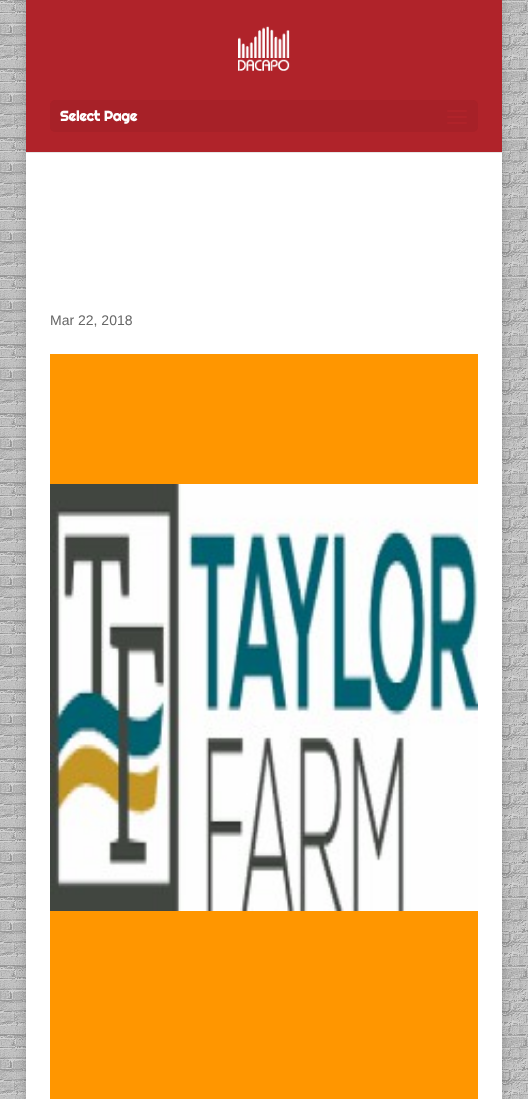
<svg xmlns="http://www.w3.org/2000/svg" width="528" height="1099" viewBox="0 0 528 1099">
  <rect width="100%" height="100%" fill="rgb(255,255,255)"/>
  <image x="0" y="0" width="528" height="1099" href="pic1.png"/>
  <rect x="26" y="0" width="476" height="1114" fill="rgba(0,0,0,0.2)" filter="blur(5px)"/>
  <rect x="26" y="152" width="476" height="1" fill="rgb(230,230,230)"/>
  <rect x="26" y="0" width="476" height="152" fill="rgb(176,35,42)"/>
  <image x="238" y="26" width="52" height="45" href="pic2.png"/>
  <rect x="50" y="100" width="428" height="32" rx="5" fill="rgb(167,33,40)"/>
  <text x="60" y="121" font-family="Righteous" font-size="14" font-weight="bold" fill="rgb(255,255,255)">Select Page</text>
  <image x="447" y="110" width="20" height="14" href="pic3.png"/>
  <rect x="26" y="153" width="476" height="946" fill="rgb(255,255,255)"/>
  <text x="50" y="325" font-family="Liberation Sans" font-size="14" fill="rgb(102,102,102)">Mar 22, 2018</text>
  <rect x="50" y="354" width="428" height="745" fill="rgb(255,150,0)"/>
  <image x="50" y="484" width="428" height="427" href="pic4.png"/>
</svg>
